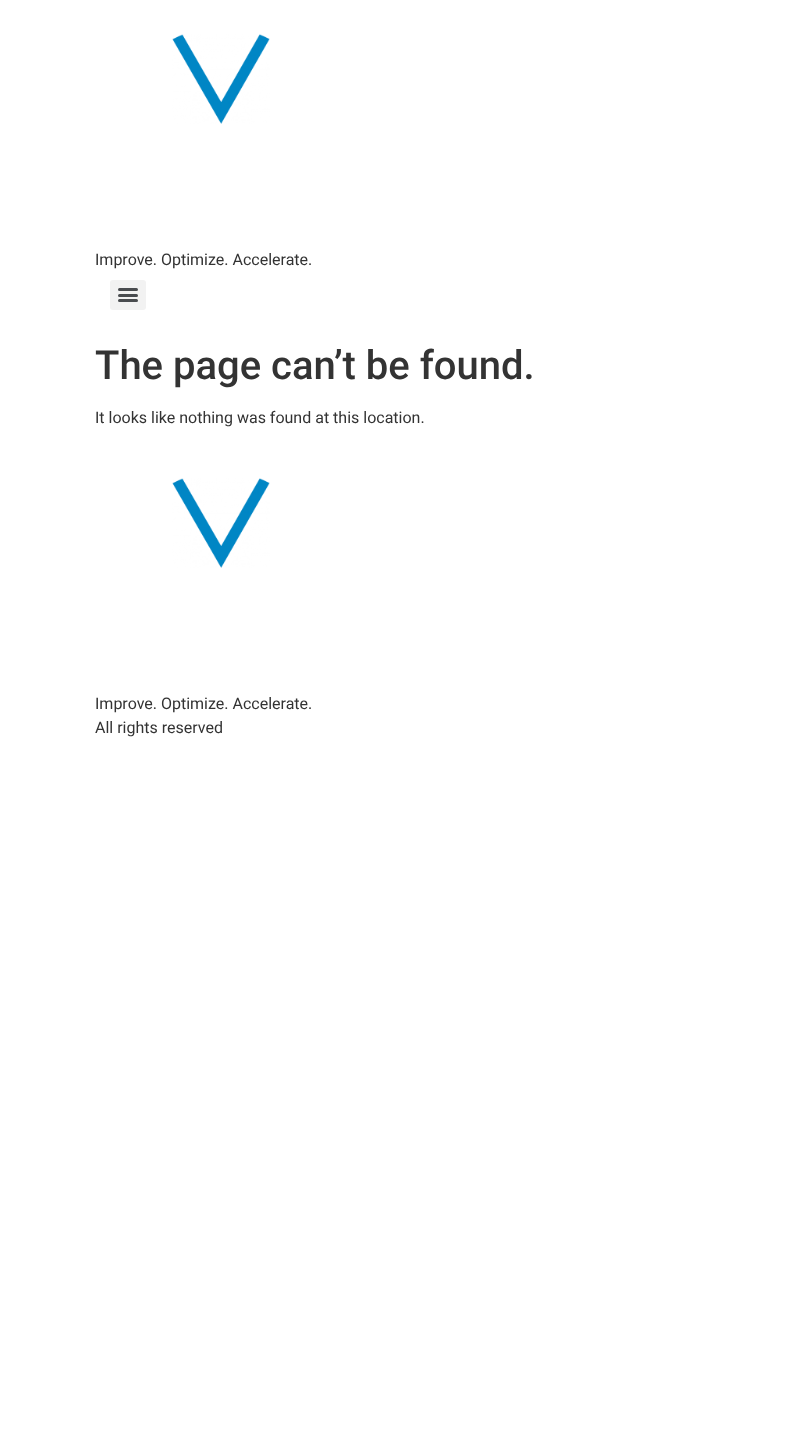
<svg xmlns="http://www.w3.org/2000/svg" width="790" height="1450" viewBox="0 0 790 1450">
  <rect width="100%" height="100%" fill="rgb(255,255,255)"/>
  <image x="172" y="34" width="98" height="90" href="pic1.png"/>
  <text x="95" y="265" font-family="Roboto" font-size="16" fill="rgb(51,51,51)">Improve. Optimize. Accelerate.</text>
  <rect x="110" y="280" width="36" height="30" rx="3" fill="rgb(242,242,242)"/>
  <rect x="118" y="294" width="20" height="3" rx="1.5" fill="rgb(73,76,79)"/>
  <rect x="118" y="288" width="20" height="3" rx="1.5" fill="rgb(73,76,79)"/>
  <rect x="118" y="299" width="20" height="3" rx="1.5" fill="rgb(73,76,79)"/>
  <text x="95" y="379" font-family="Roboto" font-size="40" font-weight="500" fill="rgb(51,51,51)">The page can’t be found.</text>
  <text x="95" y="423" font-family="Roboto" font-size="16" fill="rgb(51,51,51)">It looks like nothing was found at this location.</text>
  <image x="172" y="478" width="98" height="90" href="pic1.png"/>
  <g font-family="Roboto" font-size="16" fill="rgb(51,51,51)">
    <text>
      <tspan x="95" y="709">Improve. Optimize. Accelerate.</tspan>
      <tspan x="95" y="733">All rights reserved</tspan>
    </text>
  </g>
</svg>
